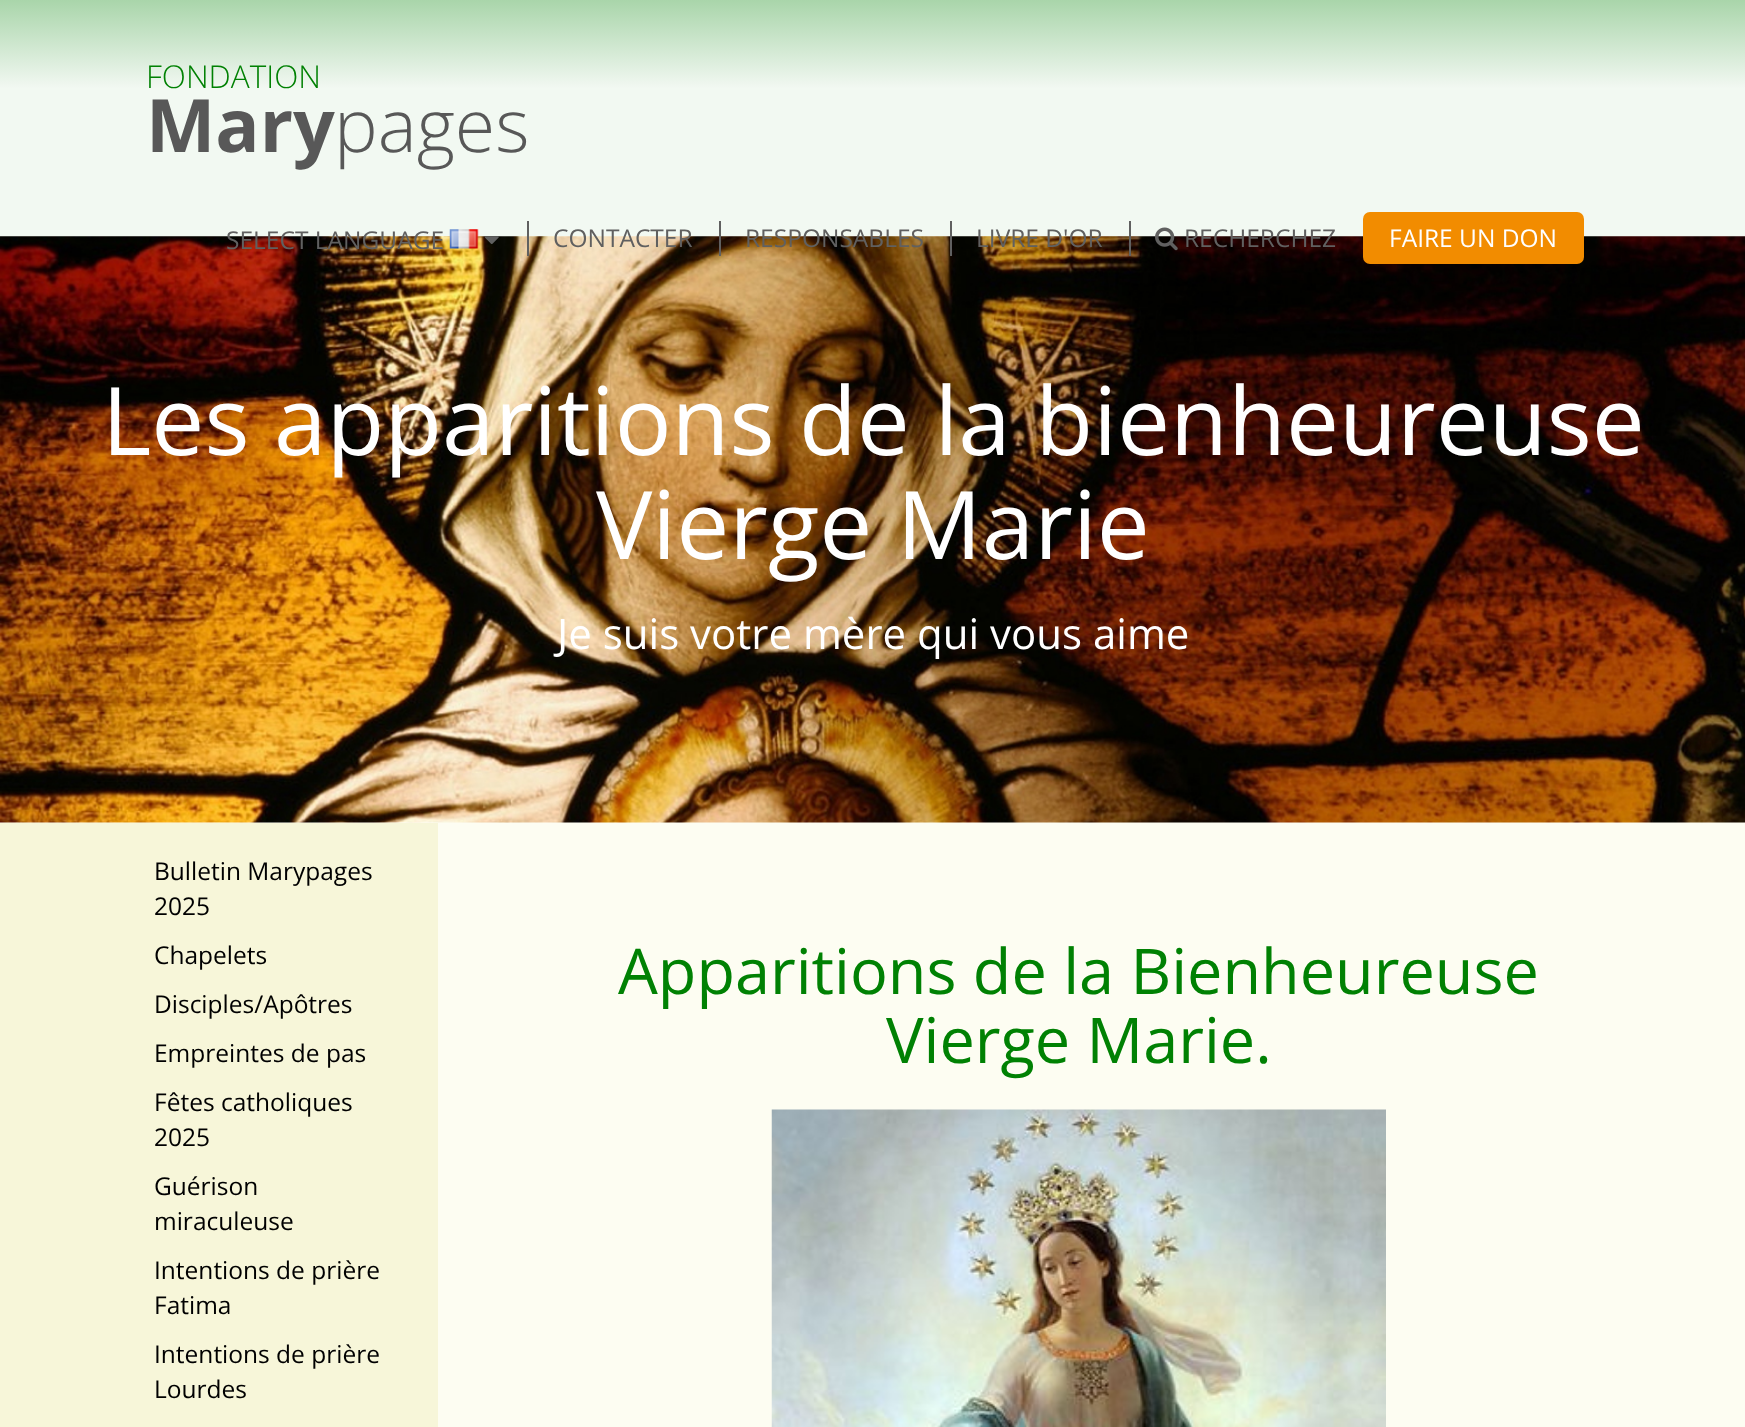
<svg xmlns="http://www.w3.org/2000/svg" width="1745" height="1427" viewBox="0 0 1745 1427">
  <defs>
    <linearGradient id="g1" gradientUnits="userSpaceOnUse" x1="873" y1="0" x2="873" y2="88"><stop offset="0" stop-color="rgb(169,213,170)"/><stop offset="1" stop-color="rgb(242,248,242)"/></linearGradient>
  </defs>
  <rect width="100%" height="100%" fill="rgb(253,253,242)"/>
  <rect x="0" y="88" width="1745" height="148" fill="rgb(242,249,242)"/>
  <rect x="0" y="0" width="1745" height="88" fill="url(#g1)"/>
  <text x="146" y="88" font-family="Open Sans" font-size="31.5" font-weight="300" fill="rgb(0,129,3)">FONDATION</text>
  <text x="146" y="152" font-family="Open Sans" font-size="73.5" font-weight="bold" fill="rgb(88,88,88)">Mary</text>
  <text x="334" y="152" font-family="Open Sans" font-size="73.5" font-weight="300" fill="rgb(88,88,88)">pages</text>
  <image x="0" y="236" width="1745" height="587" href="pic4.png"/>
  <text x="226" y="249" font-family="Open Sans" font-size="24.5" fill="rgb(96,96,96)">SELECT LANGUAGE</text>
  <image x="449" y="229" width="30" height="20" href="pic1.png"/>
  <image x="484" y="236" width="15" height="8" href="pic2.png"/>
  <rect x="527" y="221" width="2" height="35" fill="rgb(96,96,96)"/>
  <text x="553" y="247" font-family="Open Sans" font-size="24.5" fill="rgb(96,96,96)">CONTACTER</text>
  <rect x="719" y="221" width="2" height="35" fill="rgb(96,96,96)"/>
  <text x="745" y="247" font-family="Open Sans" font-size="24.5" fill="rgb(96,96,96)">RESPONSABLES</text>
  <rect x="950" y="221" width="2" height="35" fill="rgb(96,96,96)"/>
  <text x="976" y="247" font-family="Open Sans" font-size="24.5" fill="rgb(96,96,96)">LIVRE D'OR</text>
  <rect x="1129" y="221" width="2" height="35" fill="rgb(96,96,96)"/>
  <image x="1155" y="227" width="23" height="24" href="pic3.png"/>
  <text x="1184" y="247" font-family="Open Sans" font-size="24.5" fill="rgb(96,96,96)">RECHERCHEZ</text>
  <rect x="1363" y="212" width="221" height="52" rx="7" fill="rgb(242,140,0)"/>
  <text x="1389" y="247" font-family="Open Sans" font-size="24.5" fill="rgb(255,255,255)">FAIRE UN DON</text>
  <g font-family="Open Sans" font-size="94.5" fill="rgb(255,255,255)">
    <text x="102" y="455">Les apparitions de la bienheureuse</text>
    <text x="596" y="559">Vierge Marie</text>
  </g>
  <text x="557" y="649" font-family="Open Sans" font-size="42" fill="rgb(255,255,255)">Je suis votre mère qui vous aime</text>
  <rect x="0" y="823" width="438" height="604" fill="rgb(247,246,217)"/>
  <g font-family="Open Sans" font-size="24.5" fill="rgb(0,0,0)">
    <text>
      <tspan x="154" y="880">Bulletin Marypages</tspan>
      <tspan x="154" y="915">2025</tspan>
    </text>
    <text x="154" y="964">Chapelets</text>
    <text x="154" y="1013">Disciples/Apôtres</text>
    <text x="154" y="1062">Empreintes de pas</text>
    <text>
      <tspan x="154" y="1111">Fêtes catholiques</tspan>
      <tspan x="154" y="1146">2025</tspan>
    </text>
    <text>
      <tspan x="154" y="1195">Guérison</tspan>
      <tspan x="154" y="1230">miraculeuse</tspan>
    </text>
    <text>
      <tspan x="154" y="1279">Intentions de prière</tspan>
      <tspan x="154" y="1314">Fatima</tspan>
    </text>
    <text>
      <tspan x="154" y="1363">Intentions de prière</tspan>
      <tspan x="154" y="1398">Lourdes</tspan>
    </text>
  </g>
  <g font-family="Open Sans" font-size="63" fill="rgb(0,129,3)">
    <text x="618" y="994">Apparitions de la Bienheureuse</text>
    <text x="886" y="1063">Vierge Marie.</text>
  </g>
  <image x="771" y="1109" width="615" height="318" href="pic5.png"/>
</svg>
